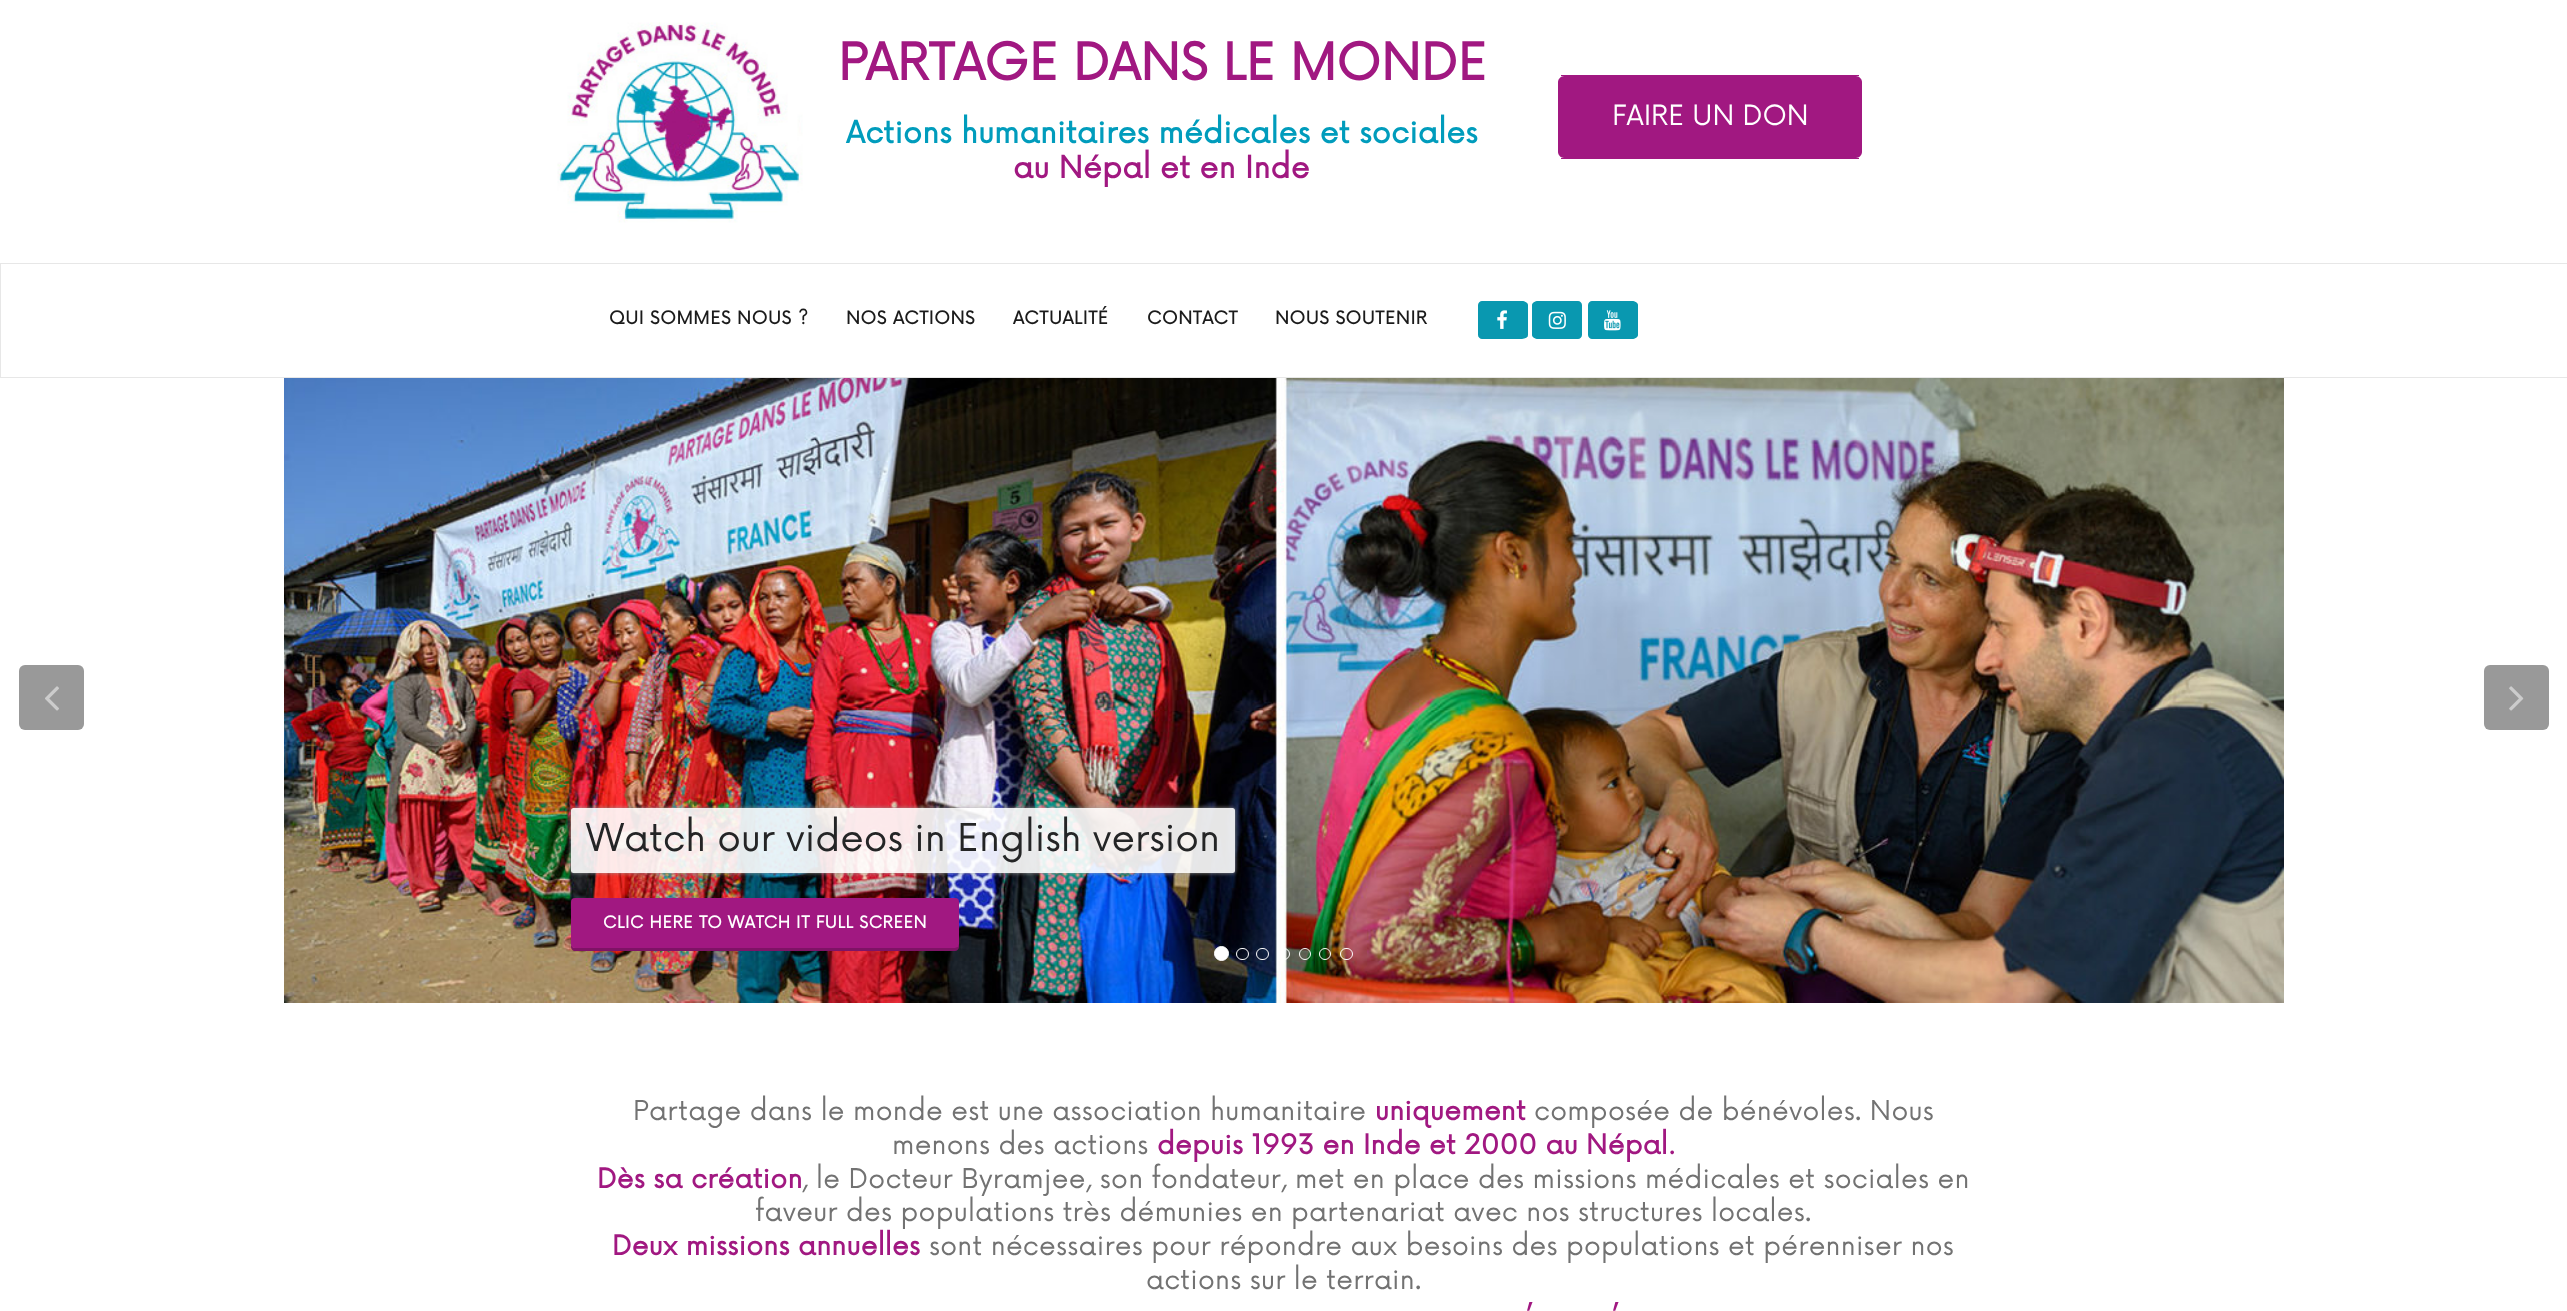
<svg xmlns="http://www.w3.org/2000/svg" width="2567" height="1311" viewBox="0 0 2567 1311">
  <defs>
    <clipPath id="clip1"><path d="M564 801H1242V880H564ZM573.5 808H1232.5C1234 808 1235 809 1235 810.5V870.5C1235 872 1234 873 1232.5 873H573.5C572 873 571 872 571 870.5V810.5C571 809 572 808 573.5 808Z" clip-rule="evenodd"/></clipPath>
  </defs>
  <rect width="100%" height="100%" fill="rgb(255,255,255)"/>
  <image x="557" y="22" width="246" height="201" href="pic1.png"/>
  <text x="838" y="80" font-family="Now" font-size="50" font-weight="bold" fill="rgb(161,24,129)">PARTAGE DANS LE MONDE</text>
  <text x="846" y="143" font-family="Now" font-size="30" font-weight="bold" letter-spacing="0.25" fill="rgb(0,156,188)">Actions humanitaires médicales et sociales</text>
  <text x="1013" y="178" font-family="Now" font-size="30" font-weight="bold" letter-spacing="0.25" fill="rgb(161,24,129)">au Népal et en Inde</text>
  <path d="M1564 76H1856C1859 76 1862 79 1862 82V152C1862 155 1859 158 1856 158H1564C1561 158 1558 155 1558 152V82C1558 79 1561 76 1564 76Z" fill="rgb(161,24,129)"/>
  <rect x="1561" y="75" width="298" height="1" fill="rgb(161,24,129)"/>
  <rect x="1561" y="158" width="298" height="1" fill="rgb(161,24,129)"/>
  <text x="1612" y="125" font-family="Now" font-size="27.25" fill="rgb(255,255,255)">FAIRE UN DON</text>
  <rect x="0.5" y="263.5" width="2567" height="114" fill="none" stroke="rgb(231,231,231)"/>
  <g font-family="Now" font-size="17.5" font-weight="bold" letter-spacing="0.6" fill="rgb(27,27,27)">
    <text x="609" y="324">QUI SOMMES NOUS ?</text>
    <text x="846" y="324">NOS ACTIONS</text>
    <text x="1013" y="324">ACTUALITÉ</text>
    <text x="1147" y="324">CONTACT</text>
    <text x="1275" y="324">NOUS SOUTENIR</text>
  </g>
  <path d="M1482 301H1522C1525 301 1528 303 1528 305V335C1528 337 1525 339 1522 339H1482C1480 339 1478 337 1478 335V305C1478 303 1480 301 1482 301Z" fill="rgb(9,152,176)"/>
  <image x="1497" y="310" width="10" height="19" href="pic2.png"/>
  <path d="M1538 301H1578C1580 301 1582 303 1582 305V335C1582 337 1580 339 1578 339H1538C1535 339 1532 337 1532 335V305C1532 303 1535 301 1538 301Z" fill="rgb(9,152,176)"/>
  <image x="1548" y="311" width="18" height="18" href="pic3.png"/>
  <path d="M1592 301H1632C1635 301 1638 303 1638 305V335C1638 337 1635 339 1632 339H1592C1590 339 1588 337 1588 335V305C1588 303 1590 301 1592 301Z" fill="rgb(9,152,176)"/>
  <image x="1604" y="310" width="17" height="21" href="pic4.png"/>
  <rect x="19" y="665" width="65" height="65" rx="6" fill="rgb(153,153,153)"/>
  <image x="45" y="686" width="14" height="25" href="pic5.png"/>
  <rect x="2484" y="665" width="65" height="65" rx="6" fill="rgb(153,153,153)"/>
  <image x="2509" y="686" width="15" height="25" href="pic6.png"/>
  <image x="284" y="378" width="2000" height="625" href="pic7.png"/>
  <g clip-path="url(#clip1)">
    <rect x="571" y="808" width="664" height="65" rx="2.5" fill="rgba(161,161,161,0.9)" filter="blur(2px)"/>
  </g>
  <rect x="571" y="808" width="664" height="65" rx="2.5" fill="rgba(255,255,255,0.9)"/>
  <text x="586" y="851" font-family="Now" font-size="37.5" fill="rgb(36,37,38)">Watch our videos in English version</text>
  <path d="M571 904V947C571 949 573 951 575 951H955C957 951 959 949 959 947V904V944C959 946 957 948 955 948H575C573 948 571 946 571 944Z" fill="rgb(127,19,102)"/>
  <rect x="571" y="898" width="388" height="50" rx="4" fill="rgb(161,24,129)"/>
  <text x="603" y="928" font-family="Now" font-size="16.25" font-weight="bold" letter-spacing="0.6" fill="rgb(255,255,255)">CLIC HERE TO WATCH IT FULL SCREEN</text>
  <circle cx="1221.5" cy="953.5" r="7" fill="rgb(255,255,255)" stroke="rgb(255,255,255)"/>
  <rect x="1236.5" y="948.5" width="12" height="11" rx="5.5" fill="none" stroke="rgb(255,255,255)"/>
  <rect x="1256.5" y="948.5" width="12" height="11" rx="5.5" fill="none" stroke="rgb(255,255,255)"/>
  <circle cx="1284" cy="954" r="5.5" fill="none" stroke="rgb(255,255,255)"/>
  <circle cx="1305" cy="954" r="5.5" fill="none" stroke="rgb(255,255,255)"/>
  <circle cx="1325" cy="954" r="5.5" fill="none" stroke="rgb(255,255,255)"/>
  <rect x="1340.5" y="948.5" width="12" height="11" rx="5.5" fill="none" stroke="rgb(255,255,255)"/>
  <text x="633" y="1120" font-family="Now" font-size="26.65" letter-spacing="0.25" fill="rgb(114,114,114)">Partage dans le monde est une association humanitaire</text>
  <text x="1375" y="1120" font-family="Now" font-size="26.65" font-weight="bold" letter-spacing="0.25" fill="rgb(161,24,129)">uniquement</text>
  <g font-family="Now" font-size="26.65" letter-spacing="0.25" fill="rgb(114,114,114)">
    <text x="1534" y="1120">composée de bénévoles. Nous</text>
    <text x="892" y="1154">menons des actions</text>
  </g>
  <text x="1157" y="1154" font-family="Now" font-size="26.65" font-weight="bold" letter-spacing="0.25" fill="rgb(161,24,129)">depuis 1993 en Inde et 2000 au Népal</text>
  <text x="1669" y="1154" font-family="Now" font-size="26.65" letter-spacing="0.25" fill="rgb(161,24,129)">.</text>
  <text x="597" y="1188" font-family="Now" font-size="26.65" font-weight="bold" letter-spacing="0.25" fill="rgb(161,24,129)">Dès sa création</text>
  <g font-family="Now" font-size="26.65" letter-spacing="0.25" fill="rgb(114,114,114)">
    <text x="802" y="1188">, le Docteur Byramjee, son fondateur, met en place des missions médicales et sociales en</text>
    <text x="755" y="1221">faveur des populations très démunies en partenariat avec nos structures locales.</text>
  </g>
  <text x="612" y="1255" font-family="Now" font-size="26.65" font-weight="bold" letter-spacing="0.25" fill="rgb(161,24,129)">Deux missions annuelles</text>
  <g font-family="Now" font-size="26.65" letter-spacing="0.25" fill="rgb(114,114,114)">
    <text x="929" y="1255">sont nécessaires pour répondre aux besoins des populations et pérenniser nos</text>
    <text x="1146" y="1289">actions sur le terrain.</text>
  </g>
  <g font-family="Now" font-size="26.65" font-weight="bold" letter-spacing="0.25" fill="rgb(161,24,129)">
    <text x="1526" y="1323">’</text>
    <text x="1612" y="1323">’</text>
  </g>
</svg>
